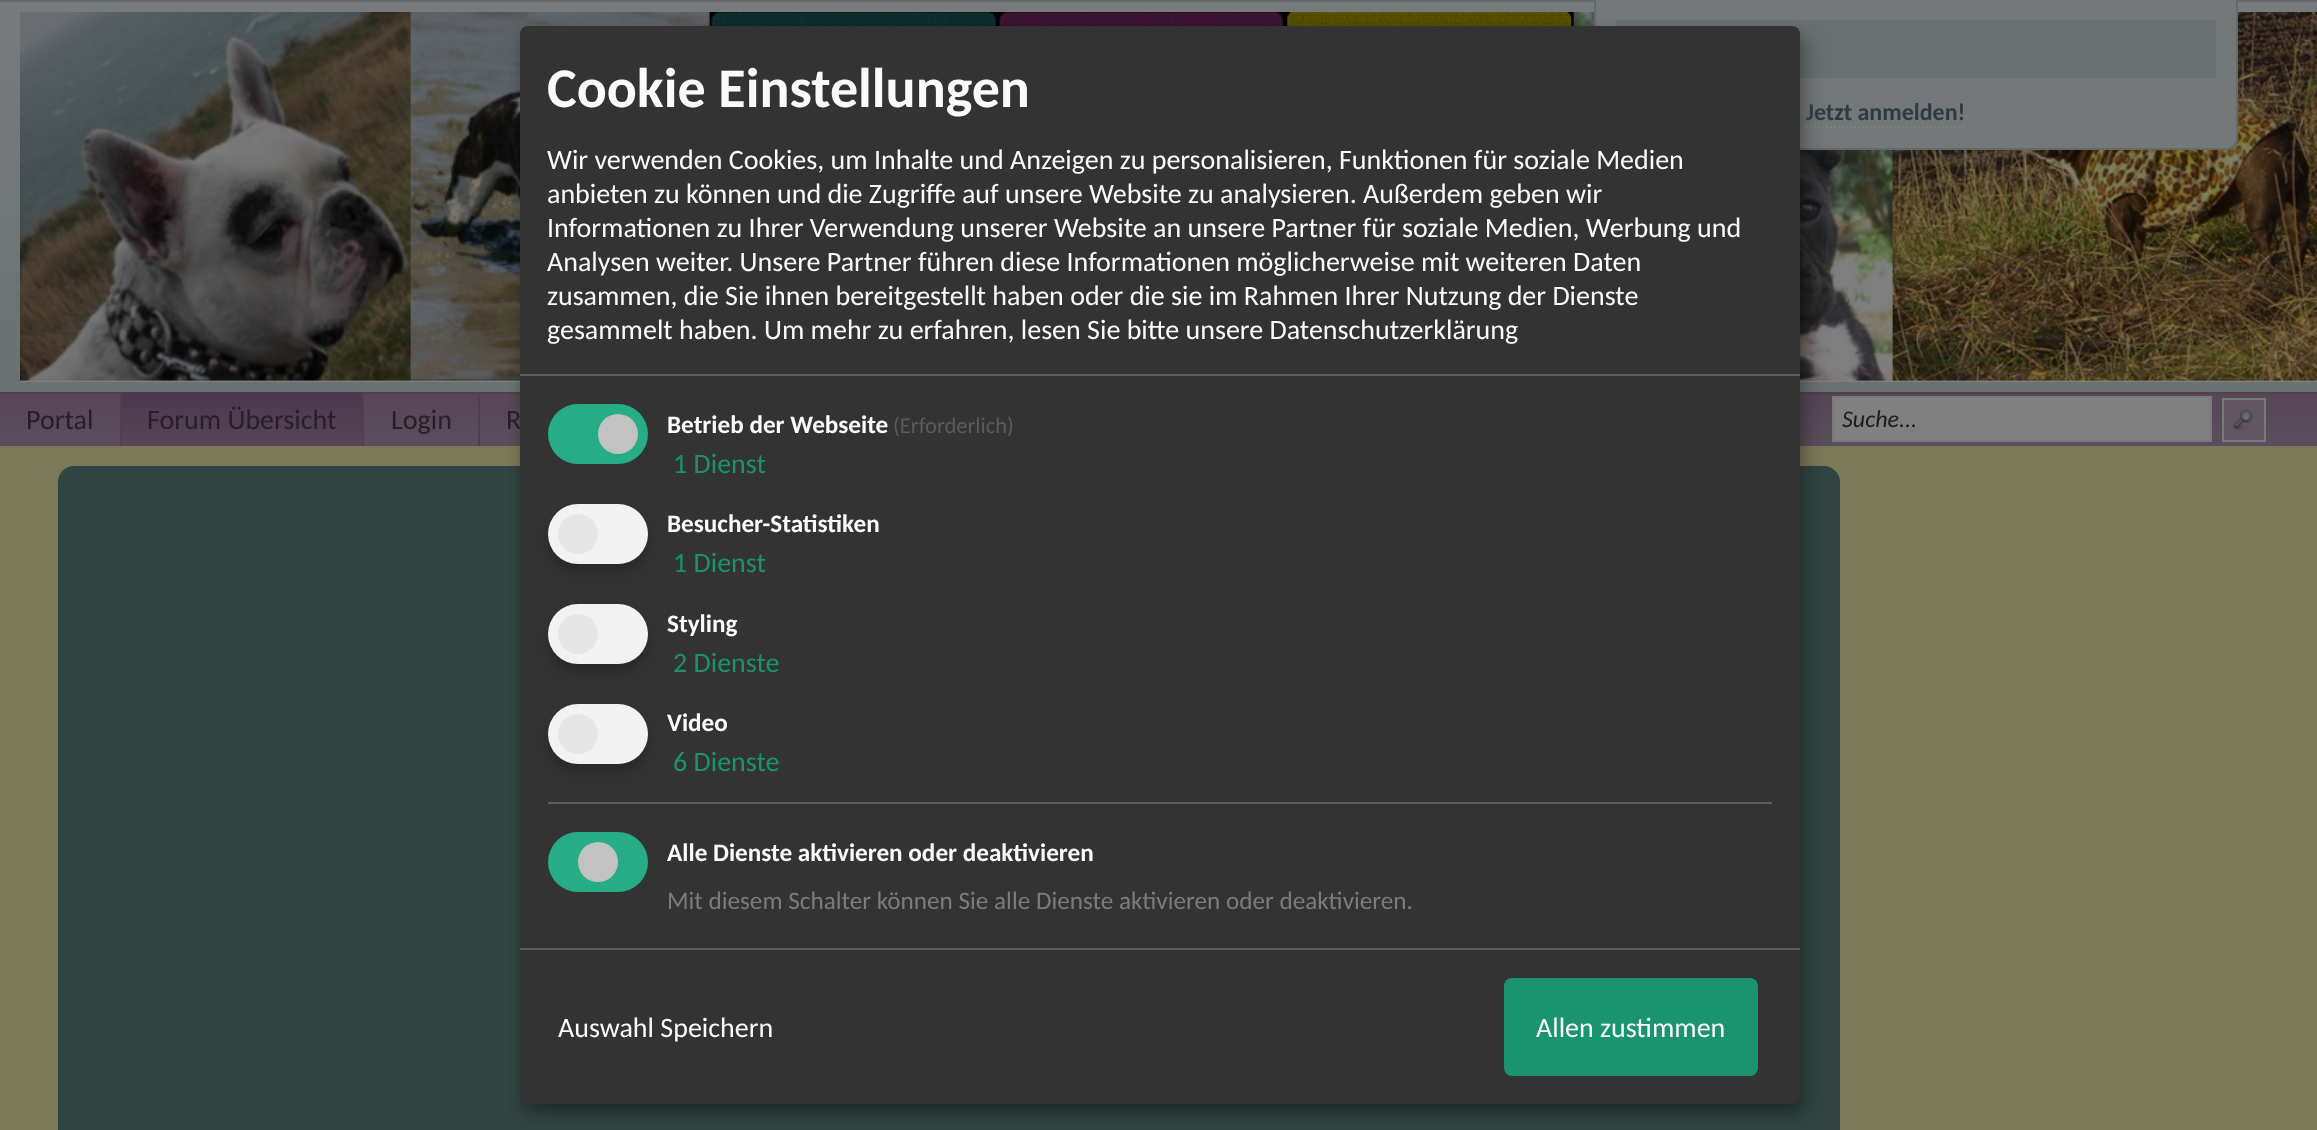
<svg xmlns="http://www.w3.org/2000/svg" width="2317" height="1130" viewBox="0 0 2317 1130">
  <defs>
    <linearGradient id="g1" gradientUnits="userSpaceOnUse" x1="0" y1="2" x2="0" y2="446"><stop offset="0" stop-color="rgb(120,123,123)"/><stop offset="1" stop-color="rgb(105,112,112)"/></linearGradient>
    <linearGradient id="g2" gradientUnits="userSpaceOnUse" x1="0" y1="392" x2="0" y2="446"><stop offset="0" stop-color="rgb(86,70,86)"/><stop offset="1" stop-color="rgb(92,78,92)"/></linearGradient>
    <linearGradient id="g3" gradientUnits="userSpaceOnUse" x1="122" y1="392" x2="122" y2="446"><stop offset="0" stop-color="rgb(76,55,76)"/><stop offset="1" stop-color="rgb(86,70,86)"/></linearGradient>
  </defs>
  <rect width="100%" height="100%" fill="rgb(124,121,90)"/>
  <rect x="0" y="2" width="2317" height="390" fill="url(#g1)"/>
  <rect x="0" y="0" width="2317" height="2" fill="rgb(97,107,107)"/>
  <image x="20" y="12" width="2297" height="370" href="pic1.png"/>
  <path d="M1594 0H2238V138C2238 144.5 2232.5 150 2226 150H1606C1599.5 150 1594 144.5 1594 138Z" fill="rgb(117,120,120)"/>
  <path d="M1594 0H2238V138C2238 145 2233 150 2226 150H1606C1599 150 1594 145 1594 138ZM1596 0H2236V138C2236 144 2232 148 2226 148H1606C1600 148 1596 144 1596 138Z" fill="rgb(97,107,107)" fill-rule="evenodd"/>
  <rect x="1616" y="20" width="600" height="58" fill="rgb(105,112,112)"/>
  <path d="M1806 127H1966" fill="none" stroke="rgb(128,128,128)" stroke-width="2" stroke-dasharray="2 2"/>
  <rect x="0" y="394" width="2317" height="52" fill="url(#g2)"/>
  <rect x="0" y="392" width="2317" height="2" fill="rgb(81,63,81)"/>
  <rect x="1833" y="397" width="378" height="44" fill="rgb(128,128,128)" stroke="rgb(120,123,123)" stroke-width="2"/>
  <rect x="58" y="466" width="1782" height="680" rx="16" fill="rgb(48,69,65)"/>
  <rect x="530" y="36" width="1280" height="1078" rx="8" fill="rgba(0,0,0,0.19)" filter="blur(10px)"/>
  <rect x="520" y="34" width="1280" height="1078" rx="8" fill="rgba(0,0,0,0.2)" filter="blur(6px)"/>
  <text x="506" y="429" font-family="Carlito" font-size="28" fill="rgb(38,30,40)">R</text>
  <rect x="520" y="26" width="1280" height="1078" rx="8" fill="rgb(51,51,51)"/>
  <rect x="520" y="374" width="1280" height="2" fill="rgb(92,92,92)"/>
  <text x="547" y="107" font-family="Carlito" font-size="56" font-weight="bold" fill="rgb(250,250,250)">Cookie Einstellungen</text>
  <g font-family="Carlito" font-size="28" fill="rgb(250,250,250)">
    <text>
      <tspan x="547" y="169">Wir verwenden Cookies, um Inhalte und Anzeigen zu personalisieren, Funktionen für soziale Medien</tspan>
      <tspan x="547" y="203">anbieten zu können und die Zugriffe auf unsere Website zu analysieren. Außerdem geben wir</tspan>
      <tspan x="547" y="237">Informationen zu Ihrer Verwendung unserer Website an unsere Partner für soziale Medien, Werbung und</tspan>
      <tspan x="547" y="271">Analysen weiter. Unsere Partner führen diese Informationen möglicherweise mit weiteren Daten</tspan>
      <tspan x="547" y="305">zusammen, die Sie ihnen bereitgestellt haben oder die sie im Rahmen Ihrer Nutzung der Dienste</tspan>
      <tspan x="547" y="339">gesammelt haben. Um mehr zu erfahren, lesen Sie bitte unsere Datenschutzerklärung</tspan>
    </text>
  </g>
  <rect x="548" y="404" width="100" height="60" rx="30" fill="rgb(39,173,133)"/>
  <circle cx="618" cy="434" r="20" fill="rgb(194,194,194)"/>
  <text x="667" y="433" font-family="Carlito" font-size="25.2" font-weight="bold" fill="rgb(250,250,250)">Betrieb der Webseite</text>
  <text x="893" y="433" font-family="Carlito" font-size="22.5" fill="rgb(92,92,92)">(Erforderlich)</text>
  <text x="673" y="473" font-family="Carlito" font-size="28" fill="rgb(26,147,111)">1 Dienst</text>
  <rect x="548" y="512" width="100" height="60" rx="30" fill="rgba(0,0,0,0.2)" filter="blur(6px)"/>
  <rect x="548" y="504" width="100" height="60" rx="30" fill="rgb(242,242,242)"/>
  <circle cx="578" cy="534" r="20" fill="rgb(230,230,230)"/>
  <text x="667" y="532" font-family="Carlito" font-size="25.2" font-weight="bold" fill="rgb(250,250,250)">Besucher-Statistiken</text>
  <text x="673" y="572" font-family="Carlito" font-size="28" fill="rgb(26,147,111)">1 Dienst</text>
  <rect x="548" y="612" width="100" height="60" rx="30" fill="rgba(0,0,0,0.2)" filter="blur(6px)"/>
  <rect x="548" y="604" width="100" height="60" rx="30" fill="rgb(242,242,242)"/>
  <circle cx="578" cy="634" r="20" fill="rgb(230,230,230)"/>
  <text x="667" y="632" font-family="Carlito" font-size="25.2" font-weight="bold" fill="rgb(250,250,250)">Styling</text>
  <text x="673" y="672" font-family="Carlito" font-size="28" fill="rgb(26,147,111)">2 Dienste</text>
  <rect x="548" y="712" width="100" height="60" rx="30" fill="rgba(0,0,0,0.2)" filter="blur(6px)"/>
  <rect x="548" y="704" width="100" height="60" rx="30" fill="rgb(242,242,242)"/>
  <circle cx="578" cy="734" r="20" fill="rgb(230,230,230)"/>
  <text x="667" y="731" font-family="Carlito" font-size="25.2" font-weight="bold" fill="rgb(250,250,250)">Video</text>
  <text x="673" y="771" font-family="Carlito" font-size="28" fill="rgb(26,147,111)">6 Dienste</text>
  <rect x="548" y="802" width="1224" height="2" fill="rgb(92,92,92)"/>
  <rect x="548" y="832" width="100" height="60" rx="30" fill="rgb(39,173,133)"/>
  <circle cx="598" cy="862" r="20" fill="rgb(194,194,194)"/>
  <text x="667" y="861" font-family="Carlito" font-size="25.2" font-weight="bold" fill="rgb(250,250,250)">Alle Dienste aktivieren oder deaktivieren</text>
  <text x="667" y="909" font-family="Carlito" font-size="25.2" fill="rgb(124,124,124)">Mit diesem Schalter können Sie alle Dienste aktivieren oder deaktivieren.</text>
  <rect x="520" y="948" width="1280" height="2" fill="rgb(92,92,92)"/>
  <text x="558" y="1037" font-family="Carlito" font-size="28" fill="rgb(250,250,250)">Auswahl Speichern</text>
  <rect x="1504" y="978" width="254" height="98" rx="8" fill="rgb(26,147,111)"/>
  <text x="1536" y="1037" font-family="Carlito" font-size="28" fill="rgb(250,250,250)">Allen zustimmen</text>
  <text x="1806" y="120" font-family="Carlito" font-size="24" font-weight="bold" fill="rgb(45,58,65)">Jetzt anmelden!</text>
  <text x="26" y="429" font-family="Carlito" font-size="28" fill="rgb(38,30,40)">Portal</text>
  <rect x="122" y="392" width="240" height="54" fill="url(#g3)"/>
  <rect x="362" y="392" width="2" height="54" fill="rgb(81,63,81)"/>
  <rect x="120" y="392" width="2" height="54" fill="rgb(81,63,81)"/>
  <g font-family="Carlito" font-size="28" fill="rgb(38,30,40)">
    <text x="147" y="429">Forum Übersicht</text>
    <text x="391" y="429">Login</text>
  </g>
  <rect x="478" y="392" width="2" height="54" fill="rgb(81,63,81)"/>
  <text x="1842" y="427" font-family="Carlito" font-size="24" font-style="italic" fill="rgb(28,28,28)">Suche...</text>
  <rect x="2224" y="400" width="40" height="40" fill="rgb(97,85,97)"/>
  <image x="2232" y="409" width="21" height="22" href="pic2.png"/>
  <rect x="2223" y="399" width="42" height="42" fill="none" stroke="rgb(120,123,123)" stroke-width="2"/>
</svg>
